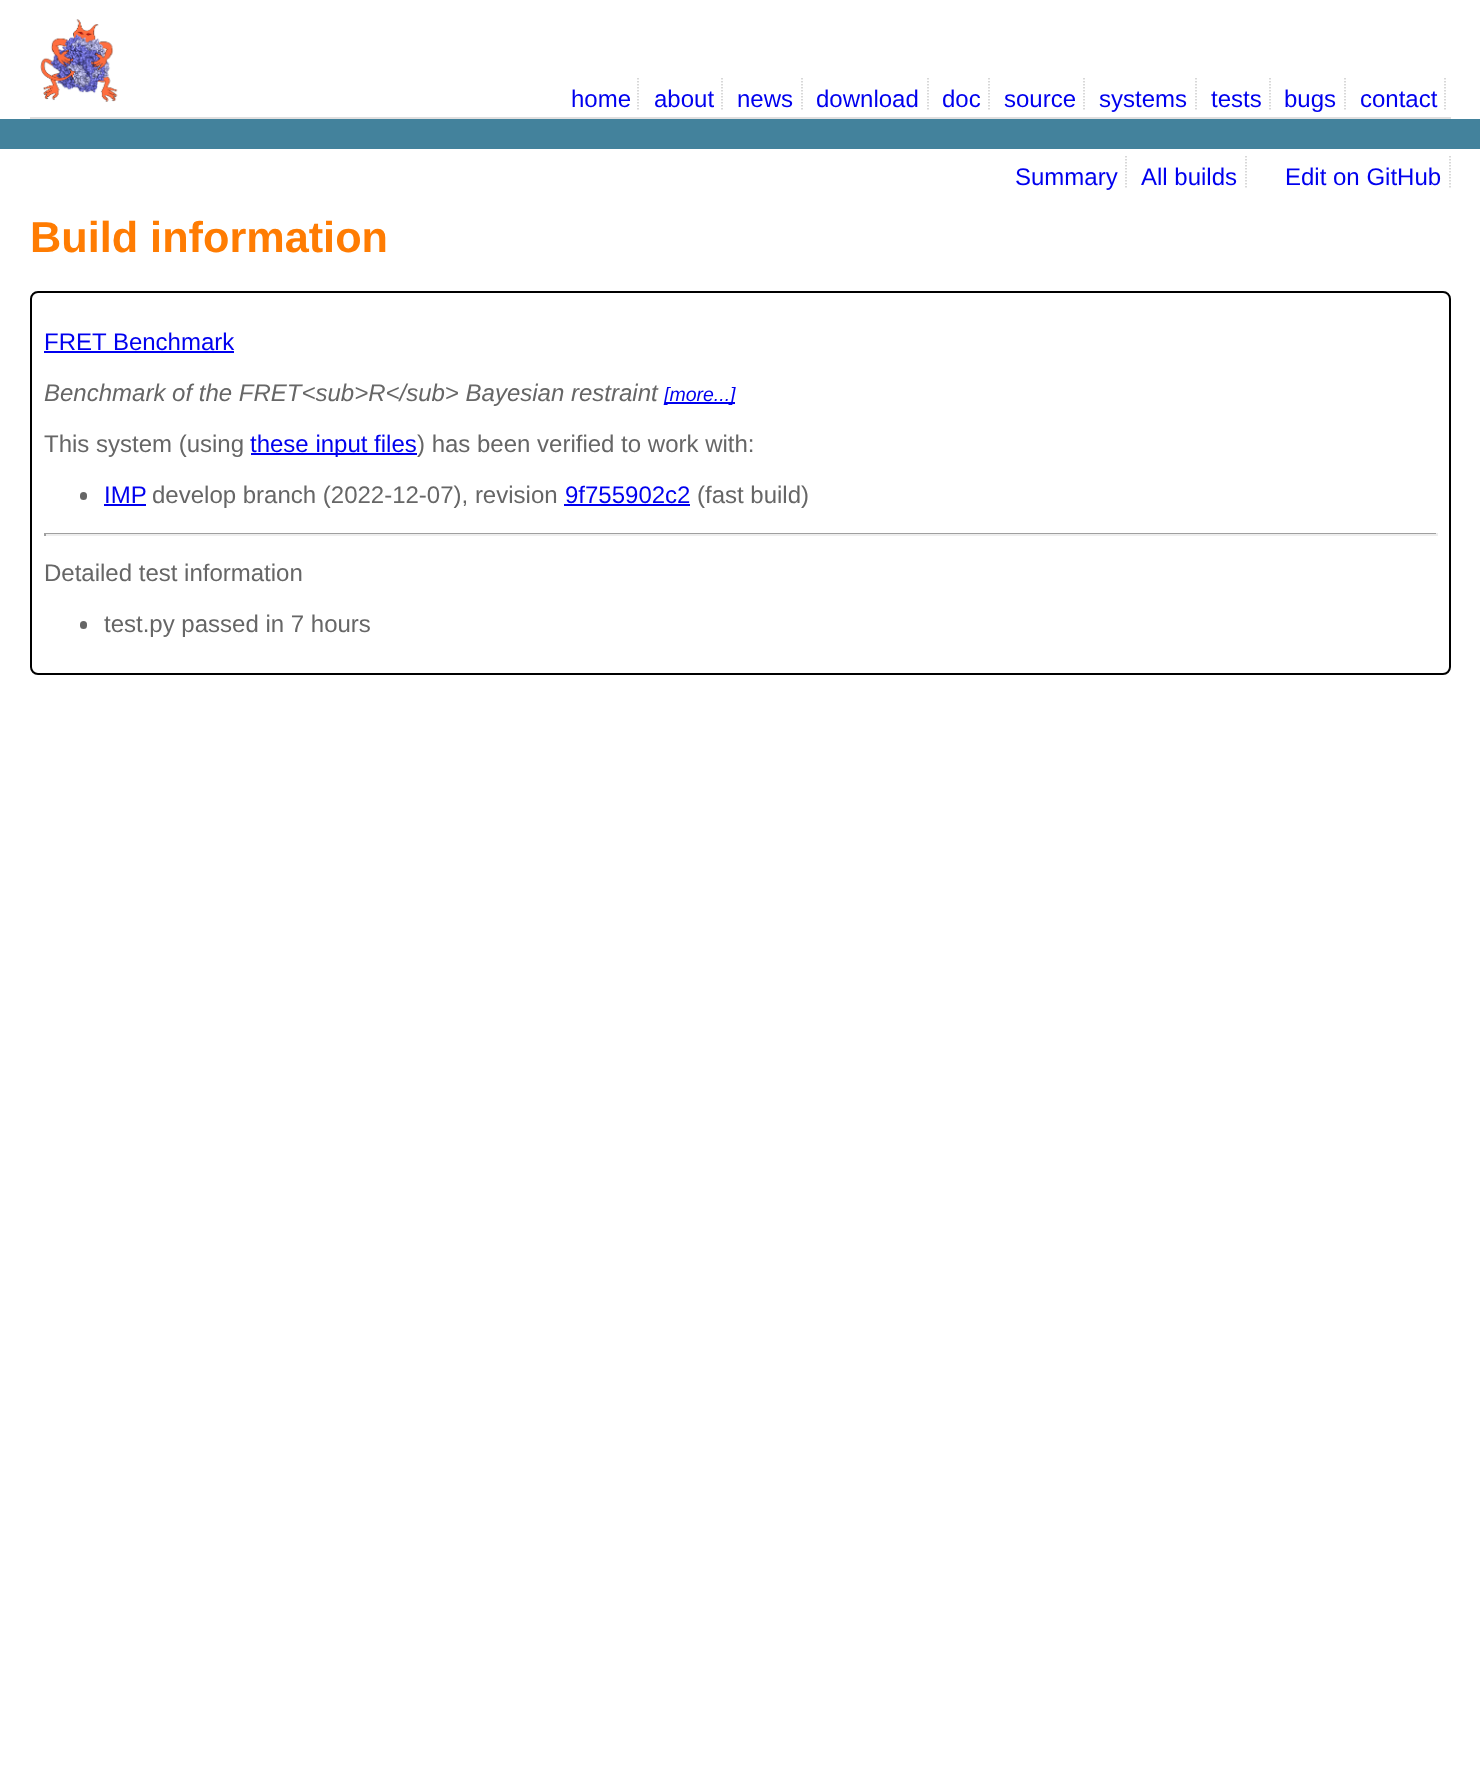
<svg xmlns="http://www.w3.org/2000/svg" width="1480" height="1786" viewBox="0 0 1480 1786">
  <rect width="100%" height="100%" fill="rgb(255,255,255)"/>
  <rect x="30" y="117" width="1421" height="2" fill="rgb(224,223,223)"/>
  <image x="40" y="19" width="78" height="83" href="pic1.png"/>
  <text x="571" y="107" font-family="Liberation Sans" font-size="24" fill="rgb(0,0,238)">home</text>
  <path d="M638 78V111" fill="none" stroke="rgb(204,204,204)" stroke-width="1.5" stroke-dasharray="1.5 1.5"/>
  <text x="654" y="107" font-family="Liberation Sans" font-size="24" fill="rgb(0,0,238)">about</text>
  <path d="M722 78V111" fill="none" stroke="rgb(204,204,204)" stroke-width="1.5" stroke-dasharray="1.5 1.5"/>
  <text x="737" y="107" font-family="Liberation Sans" font-size="24" fill="rgb(0,0,238)">news</text>
  <path d="M802 78V111" fill="none" stroke="rgb(204,204,204)" stroke-width="1.5" stroke-dasharray="1.5 1.5"/>
  <text x="816" y="107" font-family="Liberation Sans" font-size="24" fill="rgb(0,0,238)">download</text>
  <path d="M928 78V111" fill="none" stroke="rgb(204,204,204)" stroke-width="1.5" stroke-dasharray="1.5 1.5"/>
  <text x="942" y="107" font-family="Liberation Sans" font-size="24" fill="rgb(0,0,238)">doc</text>
  <path d="M989 78V111" fill="none" stroke="rgb(204,204,204)" stroke-width="1.5" stroke-dasharray="1.5 1.5"/>
  <text x="1004" y="107" font-family="Liberation Sans" font-size="24" fill="rgb(0,0,238)">source</text>
  <path d="M1084 78V111" fill="none" stroke="rgb(204,204,204)" stroke-width="1.5" stroke-dasharray="1.5 1.5"/>
  <text x="1099" y="107" font-family="Liberation Sans" font-size="24" fill="rgb(0,0,238)">systems</text>
  <path d="M1196 78V111" fill="none" stroke="rgb(204,204,204)" stroke-width="1.5" stroke-dasharray="1.5 1.5"/>
  <text x="1211" y="107" font-family="Liberation Sans" font-size="24" fill="rgb(0,0,238)">tests</text>
  <path d="M1270 78V111" fill="none" stroke="rgb(204,204,204)" stroke-width="1.5" stroke-dasharray="1.5 1.5"/>
  <text x="1284" y="107" font-family="Liberation Sans" font-size="24" fill="rgb(0,0,238)">bugs</text>
  <path d="M1345 78V111" fill="none" stroke="rgb(204,204,204)" stroke-width="1.5" stroke-dasharray="1.5 1.5"/>
  <text x="1360" y="107" font-family="Liberation Sans" font-size="24" fill="rgb(0,0,238)">contact</text>
  <path d="M1445 78V111" fill="none" stroke="rgb(204,204,204)" stroke-width="1.5" stroke-dasharray="1.5 1.5"/>
  <rect x="0" y="119" width="1480" height="30" fill="rgb(67,130,156)"/>
  <text x="1015" y="185" font-family="Liberation Sans" font-size="24" fill="rgb(0,0,238)">Summary</text>
  <path d="M1126 156V189" fill="none" stroke="rgb(204,204,204)" stroke-width="1.5" stroke-dasharray="1.5 1.5"/>
  <text x="1141" y="185" font-family="Liberation Sans" font-size="24" fill="rgb(0,0,238)">All builds</text>
  <path d="M1246 156V189" fill="none" stroke="rgb(204,204,204)" stroke-width="1.5" stroke-dasharray="1.5 1.5"/>
  <text x="1285" y="185" font-family="Liberation Sans" font-size="24" fill="rgb(0,0,238)">Edit on GitHub</text>
  <path d="M1450 156V189" fill="none" stroke="rgb(204,204,204)" stroke-width="1.5" stroke-dasharray="1.5 1.5"/>
  <text x="30" y="252" font-family="Liberation Sans" font-size="43.25" font-weight="bold" fill="rgb(255,124,2)">Build information</text>
  <rect x="31" y="292" width="1419" height="382" rx="7" fill="none" stroke="rgb(0,0,0)" stroke-width="2"/>
  <text x="44" y="350" font-family="Liberation Sans" font-size="24" fill="rgb(0,0,238)">FRET Benchmark</text>
  <rect x="44" y="351" width="190" height="2" fill="rgb(0,0,238)"/>
  <text x="44" y="401" font-family="Liberation Sans" font-size="24" font-style="italic" fill="rgb(102,102,102)">Benchmark of the FRET&lt;sub&gt;R&lt;/sub&gt; Bayesian restraint</text>
  <rect x="665" y="402" width="70" height="2" fill="rgb(0,0,238)"/>
  <text x="664" y="401" font-family="Liberation Sans" font-size="19.5" font-style="italic" fill="rgb(0,0,238)">[more...]</text>
  <text x="44" y="452" font-family="Liberation Sans" font-size="24" fill="rgb(102,102,102)">This system (using</text>
  <rect x="251" y="453" width="166" height="2" fill="rgb(0,0,238)"/>
  <text x="250" y="452" font-family="Liberation Sans" font-size="24" fill="rgb(0,0,238)">these input files</text>
  <text x="417" y="452" font-family="Liberation Sans" font-size="24" fill="rgb(102,102,102)">) has been verified to work with:</text>
  <rect x="80" y="492" width="7" height="8" rx="3.5" fill="rgb(102,102,102)"/>
  <text x="104" y="503" font-family="Liberation Sans" font-size="24" fill="rgb(0,0,238)">IMP</text>
  <rect x="104" y="504" width="42" height="2" fill="rgb(0,0,238)"/>
  <text x="152" y="503" font-family="Liberation Sans" font-size="24" fill="rgb(102,102,102)">develop branch (2022-12-07), revision</text>
  <text x="565" y="503" font-family="Liberation Sans" font-size="24" fill="rgb(0,0,238)">9f755902c2</text>
  <rect x="564" y="504" width="126" height="2" fill="rgb(0,0,238)"/>
  <text x="697" y="503" font-family="Liberation Sans" font-size="24" fill="rgb(102,102,102)">(fast build)</text>
  <rect x="44" y="533" width="1393" height="1" fill="rgb(159,159,159)"/>
  <rect x="1436" y="533" width="2" height="3" fill="rgb(238,238,238)"/>
  <rect x="44" y="534" width="1393" height="2" fill="rgb(238,238,238)"/>
  <rect x="44" y="533" width="2" height="3" fill="rgb(159,159,159)"/>
  <text x="44" y="581" font-family="Liberation Sans" font-size="24" fill="rgb(102,102,102)">Detailed test information</text>
  <rect x="80" y="621" width="7" height="8" rx="3.5" fill="rgb(102,102,102)"/>
  <text x="104" y="632" font-family="Liberation Sans" font-size="24" fill="rgb(102,102,102)">test.py passed in 7 hours</text>
</svg>
